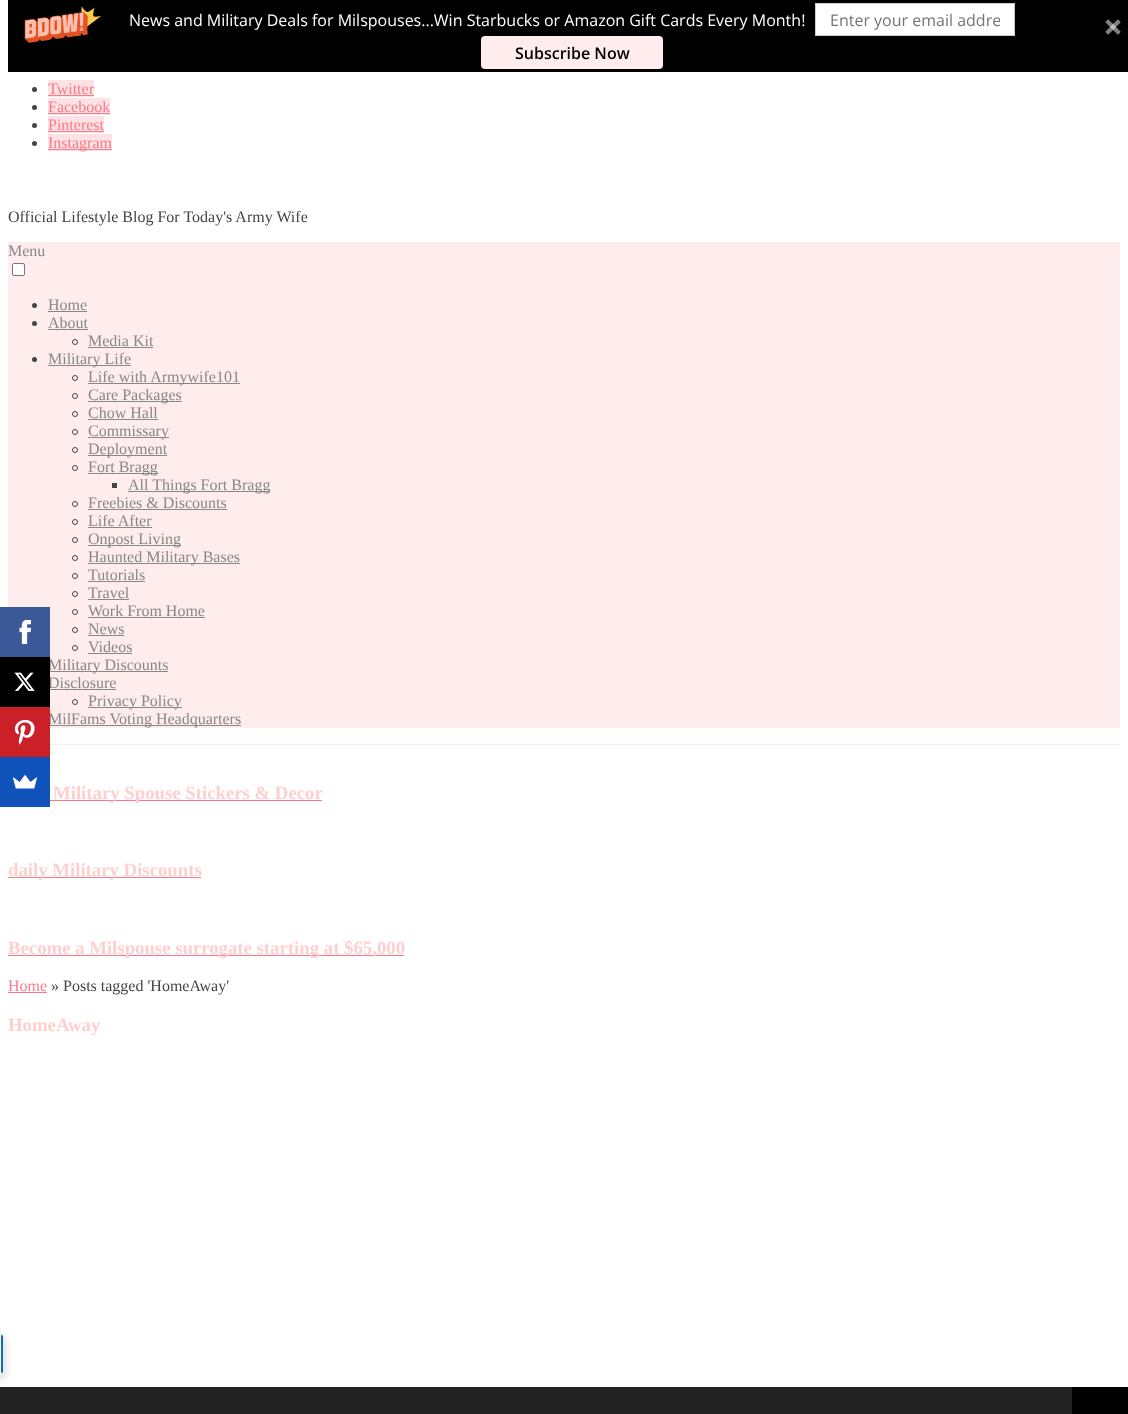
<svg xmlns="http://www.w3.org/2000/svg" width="1128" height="1414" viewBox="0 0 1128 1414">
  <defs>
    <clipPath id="clip1"><rect x="830" y="9" width="170" height="22"/></clipPath>
  </defs>
  <rect width="100%" height="100%" fill="rgb(255,255,255)"/>
  <rect x="8" y="0" width="1120" height="72" fill="rgb(0,0,0)"/>
  <image x="24" y="6" width="78" height="37" href="pic1.png"/>
  <text x="129" y="26" font-family="Open Sans" font-size="16" fill="rgb(255,255,255)">News and Military Deals for Milspouses...Win Starbucks or Amazon Gift Cards Every Month!</text>
  <rect x="815.5" y="3.5" width="199" height="32" fill="rgb(255,255,255)" stroke="rgb(204,204,204)"/>
  <g clip-path="url(#clip1)">
    <text x="830" y="26" font-family="Open Sans" font-size="16" fill="rgb(117,117,117)">Enter your email addre</text>
  </g>
  <image x="1105" y="19" width="16" height="16" href="pic2.png"/>
  <rect x="481" y="36" width="182" height="33" rx="4" fill="rgb(255,236,236)"/>
  <text x="515" y="59" font-family="Open Sans" font-size="16" font-weight="600" fill="rgb(0,0,0)">Subscribe Now</text>
  <rect x="50" y="744" width="1070" height="1" fill="rgb(255,236,236)"/>
  <circle cx="34.5" cy="89.5" r="2.5" fill="rgb(68,68,68)"/>
  <rect x="48" y="80" width="46" height="17" fill="rgb(252,226,229)"/>
  <text x="48" y="94" font-family="Liberation Serif" font-size="16" fill="rgb(252,121,136)">Twitter</text>
  <rect x="48" y="95" width="46" height="1" fill="rgb(252,121,136)"/>
  <circle cx="34.5" cy="107.5" r="2.5" fill="rgb(68,68,68)"/>
  <rect x="48" y="98" width="62" height="17" fill="rgb(252,226,229)"/>
  <text x="48" y="112" font-family="Liberation Serif" font-size="16" fill="rgb(252,121,136)">Facebook</text>
  <rect x="48" y="113" width="62" height="1" fill="rgb(252,121,136)"/>
  <circle cx="34.5" cy="125.5" r="2.5" fill="rgb(68,68,68)"/>
  <rect x="48" y="116" width="56" height="17" fill="rgb(252,226,229)"/>
  <text x="48" y="130" font-family="Liberation Serif" font-size="16" fill="rgb(252,121,136)">Pinterest</text>
  <rect x="48" y="131" width="56" height="1" fill="rgb(252,121,136)"/>
  <circle cx="34.5" cy="143.5" r="2.5" fill="rgb(68,68,68)"/>
  <rect x="48" y="134" width="64" height="17" fill="rgb(252,226,229)"/>
  <rect x="48" y="149" width="64" height="1" fill="rgb(252,121,136)"/>
  <text x="48" y="148" font-family="Liberation Serif" font-size="16" fill="rgb(252,121,136)">Instagram</text>
  <text x="8" y="222" font-family="Liberation Serif" font-size="16" fill="rgb(68,68,68)">Official Lifestyle Blog For Today's Army Wife</text>
  <rect x="8" y="242" width="1112" height="486" fill="rgb(255,236,236)"/>
  <text x="8" y="256" font-family="Liberation Serif" font-size="16" fill="rgb(136,136,136)">Menu</text>
  <rect x="12.5" y="263.5" width="12" height="12" rx="1.5" fill="rgb(255,255,255)" stroke="rgb(118,118,118)"/>
  <circle cx="34.5" cy="305.5" r="2.5" fill="rgb(68,68,68)"/>
  <text x="48" y="310" font-family="Liberation Serif" font-size="16" fill="rgb(136,136,136)">Home</text>
  <rect x="48" y="311" width="39" height="1" fill="rgb(136,136,136)"/>
  <circle cx="34.5" cy="323.5" r="2.5" fill="rgb(68,68,68)"/>
  <text x="48" y="328" font-family="Liberation Serif" font-size="16" fill="rgb(136,136,136)">About</text>
  <rect x="48" y="329" width="40" height="1" fill="rgb(136,136,136)"/>
  <circle cx="75" cy="342" r="2.5" fill="none" stroke="rgb(68,68,68)"/>
  <text x="88" y="346" font-family="Liberation Serif" font-size="16" fill="rgb(136,136,136)">Media Kit</text>
  <rect x="88" y="347" width="65" height="1" fill="rgb(136,136,136)"/>
  <circle cx="34.5" cy="359.5" r="2.5" fill="rgb(68,68,68)"/>
  <rect x="48" y="365" width="83" height="1" fill="rgb(136,136,136)"/>
  <text x="48" y="364" font-family="Liberation Serif" font-size="16" fill="rgb(136,136,136)">Military Life</text>
  <circle cx="75" cy="378" r="2.5" fill="none" stroke="rgb(68,68,68)"/>
  <rect x="88" y="383" width="152" height="1" fill="rgb(136,136,136)"/>
  <text x="88" y="382" font-family="Liberation Serif" font-size="16" fill="rgb(136,136,136)">Life with Armywife101</text>
  <circle cx="75" cy="396" r="2.5" fill="none" stroke="rgb(68,68,68)"/>
  <rect x="88" y="401" width="94" height="1" fill="rgb(136,136,136)"/>
  <text x="88" y="400" font-family="Liberation Serif" font-size="16" fill="rgb(136,136,136)">Care Packages</text>
  <circle cx="75" cy="414" r="2.5" fill="none" stroke="rgb(68,68,68)"/>
  <text x="88" y="418" font-family="Liberation Serif" font-size="16" fill="rgb(136,136,136)">Chow Hall</text>
  <rect x="88" y="419" width="70" height="1" fill="rgb(136,136,136)"/>
  <circle cx="75" cy="432" r="2.5" fill="none" stroke="rgb(68,68,68)"/>
  <rect x="88" y="437" width="81" height="1" fill="rgb(136,136,136)"/>
  <text x="88" y="436" font-family="Liberation Serif" font-size="16" fill="rgb(136,136,136)">Commissary</text>
  <circle cx="75" cy="450" r="2.5" fill="none" stroke="rgb(68,68,68)"/>
  <rect x="88" y="455" width="79" height="1" fill="rgb(136,136,136)"/>
  <text x="88" y="454" font-family="Liberation Serif" font-size="16" fill="rgb(136,136,136)">Deployment</text>
  <circle cx="75" cy="468" r="2.5" fill="none" stroke="rgb(68,68,68)"/>
  <rect x="88" y="473" width="70" height="1" fill="rgb(136,136,136)"/>
  <text x="88" y="472" font-family="Liberation Serif" font-size="16" fill="rgb(136,136,136)">Fort Bragg</text>
  <rect x="112" y="483" width="5" height="5" fill="rgb(68,68,68)"/>
  <rect x="128" y="491" width="142" height="1" fill="rgb(136,136,136)"/>
  <text x="128" y="490" font-family="Liberation Serif" font-size="16" fill="rgb(136,136,136)">All Things Fort Bragg</text>
  <circle cx="75" cy="504" r="2.5" fill="none" stroke="rgb(68,68,68)"/>
  <text x="88" y="508" font-family="Liberation Serif" font-size="16" fill="rgb(136,136,136)">Freebies &amp; Discounts</text>
  <rect x="88" y="509" width="139" height="1" fill="rgb(136,136,136)"/>
  <circle cx="75" cy="522" r="2.5" fill="none" stroke="rgb(68,68,68)"/>
  <text x="88" y="526" font-family="Liberation Serif" font-size="16" fill="rgb(136,136,136)">Life After</text>
  <rect x="88" y="527" width="64" height="1" fill="rgb(136,136,136)"/>
  <circle cx="75" cy="540" r="2.5" fill="none" stroke="rgb(68,68,68)"/>
  <rect x="88" y="545" width="93" height="1" fill="rgb(136,136,136)"/>
  <text x="88" y="544" font-family="Liberation Serif" font-size="16" fill="rgb(136,136,136)">Onpost Living</text>
  <circle cx="75" cy="558" r="2.5" fill="none" stroke="rgb(68,68,68)"/>
  <rect x="88" y="563" width="152" height="1" fill="rgb(136,136,136)"/>
  <text x="88" y="562" font-family="Liberation Serif" font-size="16" fill="rgb(136,136,136)">Haunted Military Bases</text>
  <circle cx="75" cy="576" r="2.5" fill="none" stroke="rgb(68,68,68)"/>
  <text x="88" y="580" font-family="Liberation Serif" font-size="16" fill="rgb(136,136,136)">Tutorials</text>
  <rect x="88" y="581" width="57" height="1" fill="rgb(136,136,136)"/>
  <circle cx="75" cy="594" r="2.5" fill="none" stroke="rgb(68,68,68)"/>
  <text x="88" y="598" font-family="Liberation Serif" font-size="16" fill="rgb(136,136,136)">Travel</text>
  <rect x="88" y="599" width="41" height="1" fill="rgb(136,136,136)"/>
  <circle cx="75" cy="612" r="2.5" fill="none" stroke="rgb(68,68,68)"/>
  <text x="88" y="616" font-family="Liberation Serif" font-size="16" fill="rgb(136,136,136)">Work From Home</text>
  <rect x="88" y="617" width="117" height="1" fill="rgb(136,136,136)"/>
  <circle cx="75" cy="630" r="2.5" fill="none" stroke="rgb(68,68,68)"/>
  <text x="88" y="634" font-family="Liberation Serif" font-size="16" fill="rgb(136,136,136)">News</text>
  <rect x="88" y="635" width="36" height="1" fill="rgb(136,136,136)"/>
  <circle cx="75" cy="648" r="2.5" fill="none" stroke="rgb(68,68,68)"/>
  <text x="88" y="652" font-family="Liberation Serif" font-size="16" fill="rgb(136,136,136)">Videos</text>
  <rect x="88" y="653" width="44" height="1" fill="rgb(136,136,136)"/>
  <rect x="48" y="671" width="120" height="1" fill="rgb(136,136,136)"/>
  <g font-family="Liberation Serif" font-size="16" fill="rgb(136,136,136)">
    <text>
      <tspan x="48" y="670">Military Discounts</tspan>
      <tspan x="48" y="688">Disclosure</tspan>
    </text>
  </g>
  <rect x="48" y="689" width="68" height="1" fill="rgb(136,136,136)"/>
  <circle cx="75" cy="702" r="2.5" fill="none" stroke="rgb(68,68,68)"/>
  <rect x="88" y="707" width="94" height="1" fill="rgb(136,136,136)"/>
  <text x="88" y="706" font-family="Liberation Serif" font-size="16" fill="rgb(136,136,136)">Privacy Policy</text>
  <rect x="48" y="725" width="193" height="1" fill="rgb(136,136,136)"/>
  <text x="48" y="724" font-family="Liberation Serif" font-size="16" fill="rgb(136,136,136)">MilFams Voting Headquarters</text>
  <rect x="50" y="800" width="272" height="1" fill="rgb(252,121,136)"/>
  <text x="53" y="799" font-family="Liberation Serif" font-size="18.75" font-weight="bold" fill="rgb(255,207,207)">Military Spouse Stickers &amp; Decor</text>
  <rect x="8" y="877" width="193" height="1" fill="rgb(252,121,136)"/>
  <text x="8" y="876" font-family="Liberation Serif" font-size="18.75" font-weight="bold" fill="rgb(255,207,207)">daily Military Discounts</text>
  <rect x="8" y="955" width="396" height="1" fill="rgb(252,121,136)"/>
  <text x="8" y="954" font-family="Liberation Serif" font-size="18.75" font-weight="bold" fill="rgb(255,207,207)">Become a Milspouse surrogate starting at $65,000</text>
  <text x="8" y="991" font-family="Liberation Serif" font-size="16" fill="rgb(252,121,136)">Home</text>
  <rect x="8" y="992" width="39" height="1" fill="rgb(252,121,136)"/>
  <text x="51" y="991" font-family="Liberation Serif" font-size="16" fill="rgb(68,68,68)">» Posts tagged 'HomeAway'</text>
  <text x="8" y="1031" font-family="Liberation Serif" font-size="18.75" font-weight="bold" fill="rgb(255,207,207)">HomeAway</text>
  <rect x="0" y="607" width="50" height="50" fill="rgb(59,89,152)"/>
  <image x="19" y="620" width="12" height="24" href="pic3.png"/>
  <rect x="0" y="657" width="50" height="50" fill="rgb(0,0,0)"/>
  <image x="14" y="672" width="21" height="19" href="pic4.png"/>
  <rect x="0" y="707" width="50" height="50" fill="rgb(203,32,39)"/>
  <image x="15" y="720" width="20" height="25" href="pic5.png"/>
  <rect x="0" y="757" width="50" height="50" fill="rgb(15,82,186)"/>
  <image x="13" y="775" width="24" height="14" href="pic6.png"/>
  <rect x="0" y="1387" width="1072" height="27" fill="rgb(34,34,34)"/>
  <rect x="-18" y="1338" width="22" height="40" rx="3" fill="rgba(0,0,0,0.2)" filter="blur(5px)"/>
  <path d="M-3.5 1334.5H1C2.5 1334.5 3.5 1335.5 3.5 1337V1371C3.5 1372.5 2.5 1373.5 1 1373.5H-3.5Z" fill="rgb(0,115,183)" stroke="rgb(252,226,229)"/>
  <rect x="0" y="1335" width="1" height="40" fill="rgb(255,255,255)"/>
  <rect x="1072" y="1387" width="56" height="27" fill="rgb(0,0,0)"/>
</svg>
